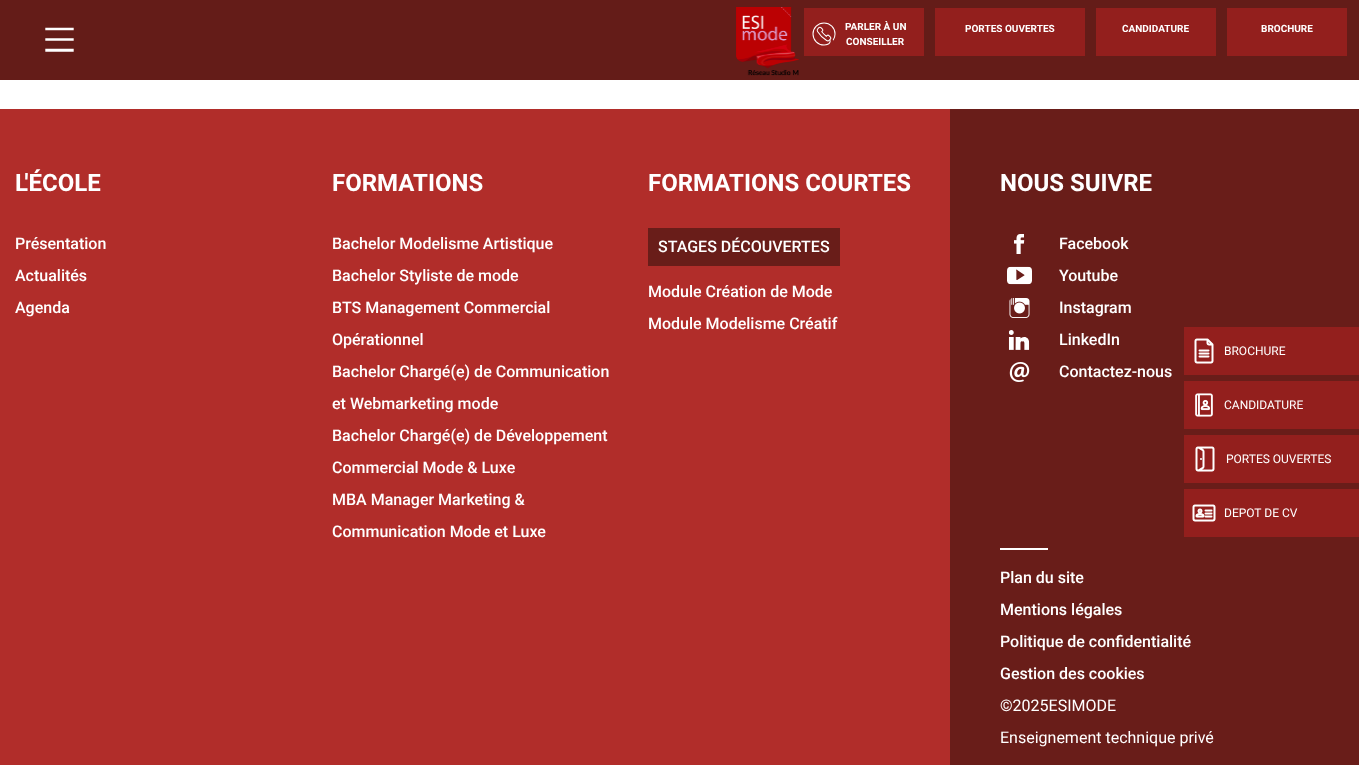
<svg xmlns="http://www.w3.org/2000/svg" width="1359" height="765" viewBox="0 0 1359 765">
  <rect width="100%" height="100%" fill="rgb(255,255,255)"/>
  <rect x="0" y="0" width="1359" height="80" fill="rgb(100,28,24)"/>
  <path d="M46 28.5H73V29.5H46ZM46 39H73V40H46ZM46 49.5H73V51H46Z" fill="none" stroke="rgb(255,255,255)" stroke-width="1.4"/>
  <image x="736" y="7" width="63" height="69" href="pic1.png"/>
  <rect x="804" y="8" width="120" height="48" fill="rgb(147,31,29)"/>
  <image x="812" y="22" width="24" height="24" href="pic2.png"/>
  <g font-family="Roboto" font-size="10" font-weight="bold" fill="rgb(255,255,255)">
    <text x="845" y="30">PARLER À UN</text>
    <text x="846" y="45">CONSEILLER</text>
  </g>
  <rect x="935" y="8" width="150" height="48" fill="rgb(147,31,29)"/>
  <text x="965" y="32" font-family="Roboto" font-size="10" font-weight="bold" fill="rgb(255,255,255)">PORTES OUVERTES</text>
  <rect x="1096" y="8" width="120" height="48" fill="rgb(147,31,29)"/>
  <text x="1122" y="32" font-family="Roboto" font-size="10" font-weight="bold" fill="rgb(255,255,255)">CANDIDATURE</text>
  <rect x="1227" y="8" width="120" height="48" fill="rgb(147,31,29)"/>
  <text x="1261" y="32" font-family="Roboto" font-size="10" font-weight="bold" fill="rgb(255,255,255)">BROCHURE</text>
  <rect x="0" y="109" width="950" height="656" fill="rgb(177,45,42)"/>
  <rect x="950" y="109" width="409" height="656" fill="rgb(105,29,25)"/>
  <text x="15" y="191" font-family="Roboto" font-size="24" font-weight="bold" fill="rgb(255,255,255)">L'ÉCOLE</text>
  <g font-family="Roboto" font-size="16" font-weight="500" fill="rgb(255,255,255)">
    <text x="15" y="249">Présentation</text>
    <text x="15" y="281">Actualités</text>
    <text x="15" y="313">Agenda</text>
  </g>
  <text x="332" y="191" font-family="Roboto" font-size="24" font-weight="bold" fill="rgb(255,255,255)">FORMATIONS</text>
  <g font-family="Roboto" font-size="16" font-weight="500" fill="rgb(255,255,255)">
    <text x="332" y="249">Bachelor Modelisme Artistique</text>
    <text x="332" y="281">Bachelor Styliste de mode</text>
    <text x="332" y="313">BTS Management Commercial</text>
    <text x="332" y="345">Opérationnel</text>
    <text x="332" y="377">Bachelor Chargé(e) de Communication</text>
    <text x="332" y="409">et Webmarketing mode</text>
    <text x="332" y="441">Bachelor Chargé(e) de Développement</text>
    <text x="332" y="473">Commercial Mode &amp; Luxe</text>
    <text x="332" y="505">MBA Manager Marketing &amp;</text>
    <text x="332" y="537">Communication Mode et Luxe</text>
  </g>
  <text x="648" y="191" font-family="Roboto" font-size="24" font-weight="bold" fill="rgb(255,255,255)">FORMATIONS COURTES</text>
  <rect x="648" y="228" width="192" height="38" fill="rgb(105,29,25)"/>
  <g font-family="Roboto" font-size="16" font-weight="500" fill="rgb(255,255,255)">
    <text x="658" y="252">STAGES DÉCOUVERTES</text>
    <text x="648" y="297">Module Création de Mode</text>
    <text x="648" y="329">Module Modelisme Créatif</text>
  </g>
  <text x="1000" y="191" font-family="Roboto" font-size="24" font-weight="bold" fill="rgb(255,255,255)">NOUS SUIVRE</text>
  <image x="1014" y="234" width="11" height="20" href="pic3.png"/>
  <text x="1059" y="249" font-family="Roboto" font-size="16" font-weight="500" fill="rgb(255,255,255)">Facebook</text>
  <image x="1007" y="266" width="25" height="19" href="pic4.png"/>
  <text x="1059" y="281" font-family="Roboto" font-size="16" font-weight="500" fill="rgb(255,255,255)">Youtube</text>
  <image x="1009" y="298" width="21" height="20" href="pic5.png"/>
  <text x="1059" y="313" font-family="Roboto" font-size="16" font-weight="500" fill="rgb(255,255,255)">Instagram</text>
  <image x="1008" y="330" width="22" height="20" href="pic6.png"/>
  <text x="1059" y="345" font-family="Roboto" font-size="16" font-weight="500" fill="rgb(255,255,255)">LinkedIn</text>
  <image x="1009" y="362" width="21" height="20" href="pic7.png"/>
  <text x="1059" y="377" font-family="Roboto" font-size="16" font-weight="500" fill="rgb(255,255,255)">Contactez-nous</text>
  <rect x="1000" y="548" width="48" height="2" fill="rgb(255,255,255)"/>
  <g font-family="Roboto" font-size="16" font-weight="500" fill="rgb(255,255,255)">
    <text x="1000" y="583">Plan du site</text>
    <text x="1000" y="615">Mentions légales</text>
    <text x="1000" y="647">Politique de confidentialité</text>
    <text x="1000" y="679">Gestion des cookies</text>
  </g>
  <g font-family="Roboto" font-size="16" fill="rgb(255,255,255)">
    <text x="1000" y="711">©2025ESIMODE</text>
    <text x="1000" y="743">Enseignement technique privé</text>
  </g>
  <rect x="1184" y="327" width="175" height="48" fill="rgb(147,31,29)"/>
  <image x="1194" y="338" width="20" height="26" href="pic8.png"/>
  <text x="1224" y="355" font-family="Roboto" font-size="12" fill="rgb(255,255,255)">BROCHURE</text>
  <rect x="1184" y="381" width="175" height="48" fill="rgb(147,31,29)"/>
  <image x="1195" y="393" width="18" height="24" href="pic9.png"/>
  <text x="1224" y="409" font-family="Roboto" font-size="12" fill="rgb(255,255,255)">CANDIDATURE</text>
  <rect x="1184" y="435" width="175" height="48" fill="rgb(147,31,29)"/>
  <image x="1195" y="446" width="20" height="26" href="pic10.png"/>
  <text x="1226" y="463" font-family="Roboto" font-size="12" fill="rgb(255,255,255)">PORTES OUVERTES</text>
  <rect x="1184" y="489" width="175" height="48" fill="rgb(147,31,29)"/>
  <image x="1192" y="504" width="24" height="18" href="pic11.png"/>
  <text x="1224" y="517" font-family="Roboto" font-size="12" fill="rgb(255,255,255)">DEPOT DE CV</text>
</svg>
